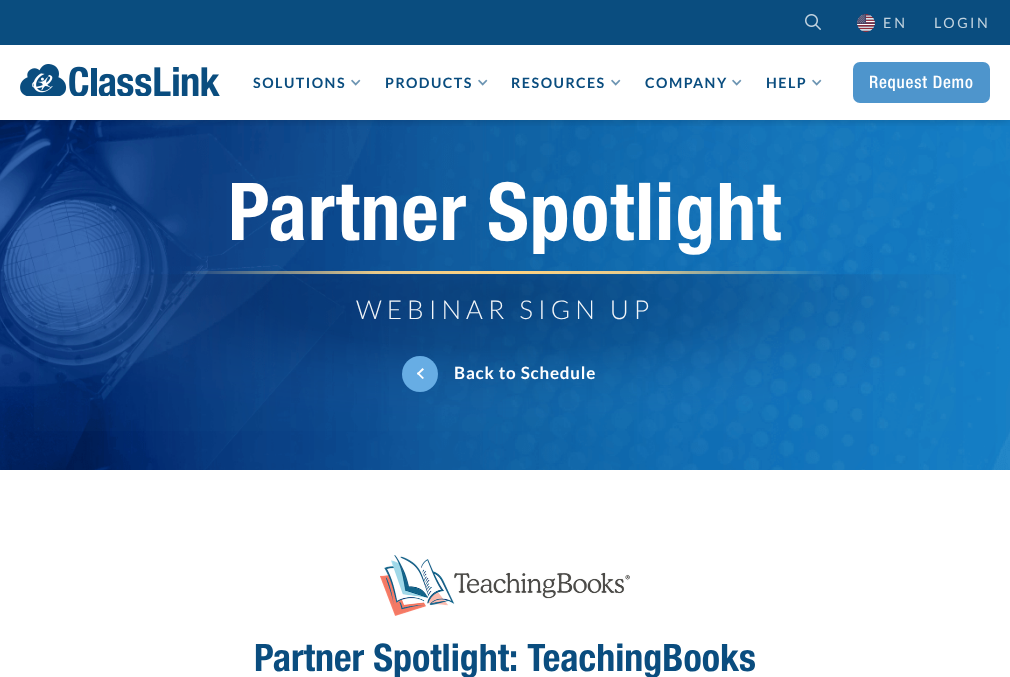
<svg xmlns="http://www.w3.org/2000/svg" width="1010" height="677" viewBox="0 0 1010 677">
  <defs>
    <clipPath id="clip1"><rect x="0" y="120" width="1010" height="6"/></clipPath>
  </defs>
  <rect width="100%" height="100%" fill="rgb(255,255,255)"/>
  <image x="0" y="120" width="1010" height="350" href="pic5.png"/>
  <g clip-path="url(#clip1)">
    <rect x="1" y="2" width="1008" height="118" fill="rgba(0,0,0,0.2)" filter="blur(5px)"/>
  </g>
  <rect x="0" y="0" width="1010" height="45" fill="rgb(10,77,127)"/>
  <image x="805" y="14" width="16" height="16" href="pic1.png"/>
  <image x="857" y="14" width="18" height="18" href="pic2.png"/>
  <text x="883" y="28" font-family="Lato" font-size="14.25" letter-spacing="3" fill="rgb(194,211,223)">EN</text>
  <text x="934" y="28" font-family="Lato" font-size="14.25" letter-spacing="2.5" fill="rgb(194,211,223)">LOGIN</text>
  <image x="20" y="64" width="200" height="32" href="pic3.png"/>
  <text x="253" y="88" font-family="Lato" font-size="14.25" font-weight="bold" letter-spacing="1.5" fill="rgb(10,77,127)">SOLUTIONS</text>
  <image x="351" y="79" width="10" height="7" href="pic4.png"/>
  <text x="385" y="88" font-family="Lato" font-size="14.25" font-weight="bold" letter-spacing="1.5" fill="rgb(10,77,127)">PRODUCTS</text>
  <image x="478" y="79" width="10" height="7" href="pic4.png"/>
  <text x="511" y="88" font-family="Lato" font-size="14.25" font-weight="bold" letter-spacing="1.5" fill="rgb(10,77,127)">RESOURCES</text>
  <image x="611" y="79" width="10" height="7" href="pic4.png"/>
  <text x="645" y="88" font-family="Lato" font-size="14.25" font-weight="bold" letter-spacing="1.5" fill="rgb(10,77,127)">COMPANY</text>
  <image x="732" y="79" width="10" height="7" href="pic4.png"/>
  <text x="766" y="88" font-family="Lato" font-size="14.25" font-weight="bold" letter-spacing="1.5" fill="rgb(10,77,127)">HELP</text>
  <image x="812" y="79" width="10" height="7" href="pic4.png"/>
  <rect x="853" y="62" width="137" height="41" rx="7" fill="rgb(78,149,204)"/>
  <text x="869" y="88" font-family="Helvetica Neue" font-size="17" font-weight="500" letter-spacing="0.8" fill="rgb(255,255,255)">Request Demo</text>
  <text x="228" y="240" font-family="Helvetica Neue" font-size="80" font-weight="bold" letter-spacing="1" fill="rgb(255,255,255)">Partner Spotlight</text>
  <image x="34" y="274" width="922" height="157" href="pic6.png"/>
  <text x="356" y="319" font-family="Lato" font-size="26" font-weight="300" letter-spacing="5" fill="rgb(243,246,249)">WEBINAR SIGN UP</text>
  <circle cx="420" cy="374" r="18" fill="rgb(103,173,228)"/>
  <path d="M418 372L424 378L422.5 379L417 373.5Z" fill="rgb(255,255,255)"/>
  <path d="M422.5 368L424 369.5L418 375L417 373.5Z" fill="rgb(255,255,255)"/>
  <text x="454" y="379" font-family="Lato" font-size="17" font-weight="bold" letter-spacing="0.8" fill="rgb(255,255,255)">Back to Schedule</text>
  <image x="380" y="555" width="250" height="61" href="pic7.png"/>
  <text x="254" y="671" font-family="Helvetica Neue" font-size="38" font-weight="bold" fill="rgb(10,77,127)">Partner Spotlight: TeachingBooks</text>
</svg>
